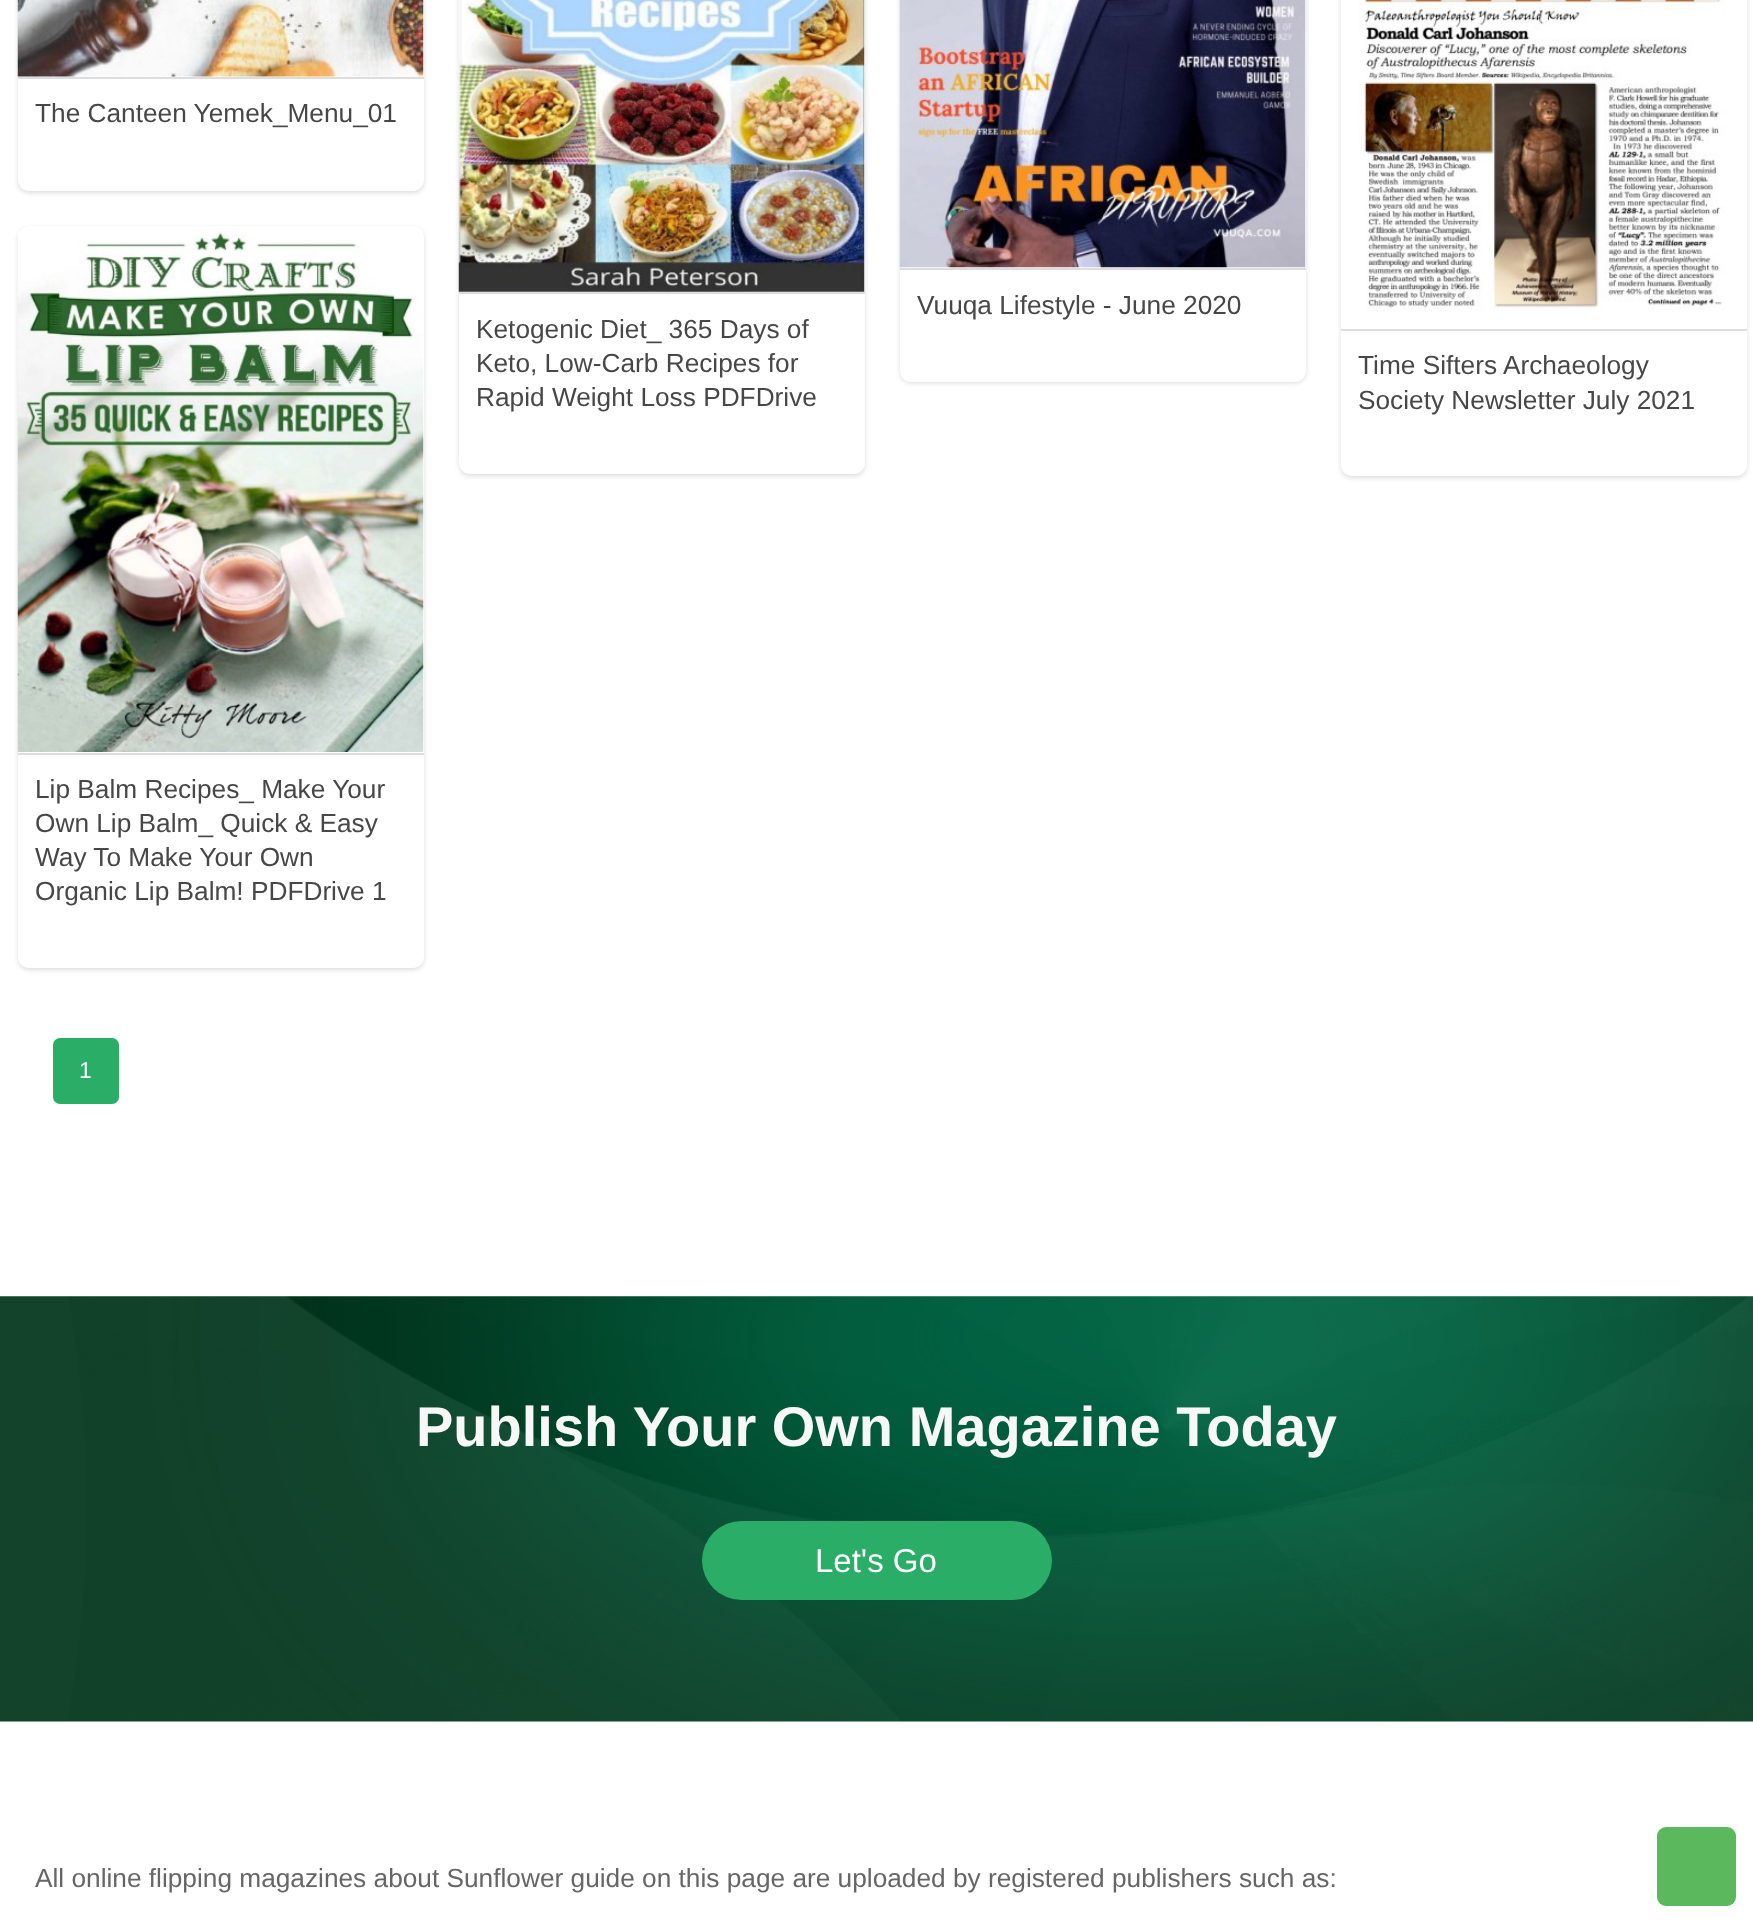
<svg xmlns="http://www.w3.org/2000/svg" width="1753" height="1923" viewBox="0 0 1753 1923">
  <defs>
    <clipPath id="clip1"><path d="M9 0H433V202H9ZM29-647H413C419-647 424-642 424-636V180C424 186 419 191 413 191H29C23 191 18 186 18 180V-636C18-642 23-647 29-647Z" clip-rule="evenodd"/></clipPath>
    <clipPath id="clip2"><path d="M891 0H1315V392H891ZM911-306H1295C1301-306 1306-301 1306-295V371C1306 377 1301 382 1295 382H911C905 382 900 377 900 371V-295C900-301 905-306 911-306Z" clip-rule="evenodd"/></clipPath>
    <clipPath id="clip3"><path d="M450 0H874V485H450ZM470-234H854C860-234 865-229 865-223V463C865 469 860 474 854 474H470C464 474 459 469 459 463V-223C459-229 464-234 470-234Z" clip-rule="evenodd"/></clipPath>
    <clipPath id="clip4"><path d="M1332 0H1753V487H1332ZM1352-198H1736C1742-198 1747-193 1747-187V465C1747 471 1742 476 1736 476H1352C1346 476 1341 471 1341 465V-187C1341-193 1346-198 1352-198Z" clip-rule="evenodd"/></clipPath>
    <clipPath id="clip5"><path d="M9 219H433V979H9ZM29 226H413C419 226 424 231 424 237V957C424 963 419 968 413 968H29C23 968 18 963 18 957V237C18 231 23 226 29 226Z" clip-rule="evenodd"/></clipPath>
  </defs>
  <rect width="100%" height="100%" fill="rgb(255,255,255)"/>
  <g clip-path="url(#clip1)">
    <rect x="18" y="-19" width="406" height="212" rx="11" fill="rgb(221,221,221)" filter="blur(2.5px)"/>
  </g>
  <image x="17" y="0" width="407" height="77" href="pic1.png"/>
  <rect x="18" y="77" width="406" height="2" fill="rgb(221,221,221)"/>
  <text x="35" y="122" font-family="Liberation Sans" font-size="26.25" fill="rgb(71,71,71)">The Canteen Yemek_Menu_01</text>
  <g clip-path="url(#clip2)">
    <rect x="900" y="-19" width="406" height="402" rx="11" fill="rgb(221,221,221)" filter="blur(2.5px)"/>
  </g>
  <image x="899" y="0" width="407" height="268" href="pic2.png"/>
  <rect x="900" y="268" width="406" height="2" fill="rgb(221,221,221)"/>
  <text x="917" y="314" font-family="Liberation Sans" font-size="26.25" fill="rgb(71,71,71)">Vuuqa Lifestyle - June 2020</text>
  <g clip-path="url(#clip3)">
    <rect x="459" y="-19" width="406" height="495" rx="11" fill="rgb(221,221,221)" filter="blur(2.5px)"/>
  </g>
  <image x="458" y="0" width="407" height="292" href="pic3.png"/>
  <rect x="459" y="292" width="406" height="2" fill="rgb(221,221,221)"/>
  <g font-family="Liberation Sans" font-size="26.25" fill="rgb(71,71,71)">
    <text>
      <tspan x="476" y="338">Ketogenic Diet_ 365 Days of</tspan>
      <tspan x="476" y="372">Keto, Low-Carb Recipes for</tspan>
      <tspan x="476" y="406">Rapid Weight Loss PDFDrive</tspan>
    </text>
  </g>
  <g clip-path="url(#clip4)">
    <rect x="1341" y="-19" width="406" height="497" rx="11" fill="rgb(221,221,221)" filter="blur(2.5px)"/>
  </g>
  <image x="1358" y="0" width="368" height="311" href="pic4.png"/>
  <rect x="1341" y="329" width="406" height="2" fill="rgb(221,221,221)"/>
  <g font-family="Liberation Sans" font-size="26.25" fill="rgb(71,71,71)">
    <text>
      <tspan x="1358" y="374">Time Sifters Archaeology</tspan>
      <tspan x="1358" y="409">Society Newsletter July 2021</tspan>
    </text>
  </g>
  <g clip-path="url(#clip5)">
    <rect x="18" y="228" width="406" height="742" rx="11" fill="rgb(221,221,221)" filter="blur(2.5px)"/>
  </g>
  <image x="17" y="231" width="407" height="521" href="pic5.png"/>
  <rect x="18" y="753" width="406" height="2" fill="rgb(221,221,221)"/>
  <g font-family="Liberation Sans" font-size="26.25" fill="rgb(71,71,71)">
    <text>
      <tspan x="35" y="798">Lip Balm Recipes_ Make Your</tspan>
      <tspan x="35" y="832">Own Lip Balm_ Quick &amp; Easy</tspan>
      <tspan x="35" y="866">Way To Make Your Own</tspan>
      <tspan x="35" y="900">Organic Lip Balm! PDFDrive 1</tspan>
    </text>
  </g>
  <rect x="53" y="1038" width="66" height="66" rx="7" fill="rgb(42,174,103)"/>
  <text x="79" y="1078" font-family="Liberation Sans" font-size="23" fill="rgb(255,255,255)">1</text>
  <image x="0" y="1296" width="1753" height="426" href="pic6.png"/>
  <text x="416" y="1446" font-family="Liberation Sans" font-size="56" font-weight="bold" fill="rgb(247,247,247)">Publish Your Own Magazine Today</text>
  <rect x="702" y="1521" width="350" height="79" rx="39.5" fill="rgb(42,174,103)"/>
  <text x="815" y="1572" font-family="Liberation Sans" font-size="33" fill="rgb(255,255,255)">Let's Go</text>
  <text x="35" y="1887" font-family="Liberation Sans" font-size="26.25" fill="rgb(102,102,102)">All online flipping magazines about Sunflower guide on this page are uploaded by registered publishers such as:</text>
  <rect x="1657" y="1827" width="79" height="79" rx="9" fill="rgb(92,184,92)"/>
</svg>
